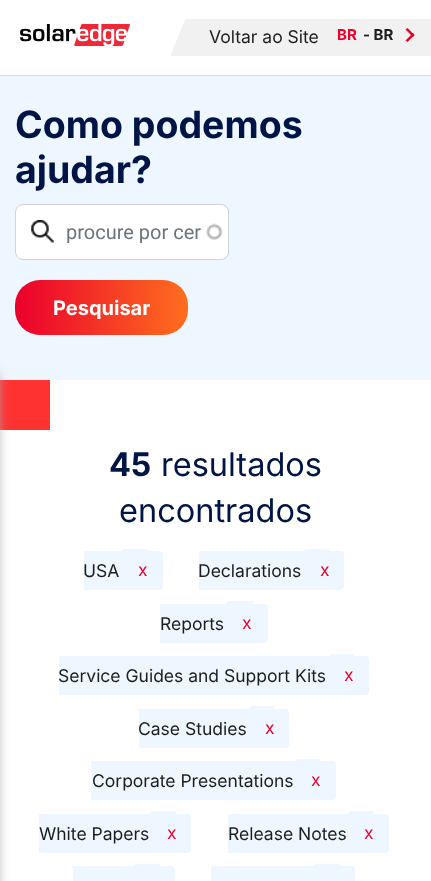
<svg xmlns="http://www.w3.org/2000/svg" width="431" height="881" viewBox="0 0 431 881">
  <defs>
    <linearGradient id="g1" gradientUnits="userSpaceOnUse" x1="15" y1="308" x2="188" y2="308"><stop offset="0.01" stop-color="rgb(235,0,44)"/><stop offset="1" stop-color="rgb(255,110,30)"/></linearGradient>
  </defs>
  <rect width="100%" height="100%" fill="rgb(255,255,255)"/>
  <rect x="0" y="75" width="431" height="1" fill="rgb(219,219,220)"/>
  <image x="20" y="24" width="110" height="22" href="pic1.png"/>
  <rect x="171" y="19" width="260" height="37" fill="rgb(241,241,241)"/>
  <path d="M171 10H189L171 54Z" fill="rgb(255,255,255)"/>
  <text x="209" y="43" font-family="Inter" font-size="17.5" fill="rgb(29,29,31)">Voltar ao Site</text>
  <text x="337" y="40" font-family="Inter" font-size="15" font-weight="bold" fill="rgb(236,1,45)">BR</text>
  <text x="363" y="40" font-family="Inter" font-size="15" font-weight="bold" fill="rgb(29,29,31)">- BR</text>
  <path d="M405.5 29.5L407.5 28L414.5 35L413 37Z" fill="rgb(236,1,45)"/>
  <path d="M405.5 40.5L413 33L414.5 35L407.5 42Z" fill="rgb(236,1,45)"/>
  <rect x="0" y="76" width="431" height="304" fill="rgb(238,246,255)"/>
  <g font-family="Inter" font-size="37.5" font-weight="bold" fill="rgb(0,20,70)">
    <text>
      <tspan x="15" y="138">Como podemos</tspan>
      <tspan x="15" y="183">ajudar?</tspan>
    </text>
  </g>
  <rect x="16" y="205" width="212" height="54" rx="6" fill="rgb(255,255,255)"/>
  <image x="206" y="223" width="17" height="17" href="pic3.png"/>
  <rect x="15.5" y="204.5" width="213" height="55" rx="7.5" fill="none" stroke="rgb(206,212,218)"/>
  <image x="31" y="220" width="23" height="23" href="pic2.png"/>
  <text x="66" y="239" font-family="Roboto" font-size="20" fill="rgb(108,117,125)">procure por cer</text>
  <rect x="15" y="280" width="173" height="55" rx="25" fill="url(#g1)"/>
  <text x="53" y="315" font-family="Inter" font-size="20" font-weight="bold" fill="rgb(255,255,255)">Pesquisar</text>
  <rect x="0" y="380" width="50" height="50" fill="rgb(255,50,50)"/>
  <rect x="-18" y="374" width="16" height="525" fill="rgb(170,170,170)" filter="blur(6px)"/>
  <text x="109" y="476" font-family="Inter" font-size="32.5" font-weight="bold" fill="rgb(0,20,70)">45</text>
  <g font-family="Inter" font-size="32.5" fill="rgb(0,20,70)">
    <text x="161" y="476">resultados</text>
    <text x="119" y="522">encontrados</text>
  </g>
  <path d="M125 549H148V590H125C123 590 121 588 121 586V553C121 551 123 549 125 549Z" fill="rgb(238,246,255)"/>
  <path d="M125 549H148V590H125C123 590 121 588 121 586V552C121 550 123 549 125 549ZM125 550H148V589H125C124 589 122 588 122 586V552C122 551 124 550 125 550Z" fill="rgb(238,246,255)" fill-rule="evenodd"/>
  <path d="M84 551H159C161 551 163 553 163 555V586C163 588 161 590 159 590H84Z" fill="rgb(238,246,255)"/>
  <path d="M84 551H159C161 551 162 553 162 555V586C162 588 161 590 159 590H84ZM84 552H159C160 552 161 554 161 555V586C161 588 160 589 159 589H84Z" fill="rgb(238,246,255)" fill-rule="evenodd"/>
  <text x="83" y="577" font-family="Inter" font-size="17.5" fill="rgb(29,29,31)">USA</text>
  <text x="138" y="576" font-family="Inter" font-size="17.5" fill="rgb(236,1,45)">x</text>
  <path d="M308 549H329V590H308C306 590 304 588 304 586V553C304 551 306 549 308 549Z" fill="rgb(238,246,255)"/>
  <path d="M308 549H329V590H308C305 590 304 588 304 586V552C304 550 305 549 308 549ZM308 550H329V589H308C306 589 305 588 305 586V552C305 551 306 550 308 550Z" fill="rgb(238,246,255)" fill-rule="evenodd"/>
  <path d="M199 551H340C342 551 344 553 344 555V586C344 588 342 590 340 590H199Z" fill="rgb(238,246,255)"/>
  <path d="M199 551H340C342 551 344 553 344 555V586C344 588 342 590 340 590H199ZM199 552H340C341 552 342 554 342 555V586C342 588 341 589 340 589H199Z" fill="rgb(238,246,255)" fill-rule="evenodd"/>
  <text x="198" y="577" font-family="Inter" font-size="17.5" fill="rgb(29,29,31)">Declarations</text>
  <text x="320" y="576" font-family="Inter" font-size="17.5" fill="rgb(236,1,45)">x</text>
  <path d="M230 601H253V643H230C228 643 226 641 226 639V605C226 603 228 601 230 601Z" fill="rgb(238,246,255)"/>
  <path d="M230 601H252V642H230C228 642 226 641 226 639V605C226 603 228 601 230 601ZM230 602H252V641H230C229 641 228 640 228 639V605C228 604 229 602 230 602Z" fill="rgb(238,246,255)" fill-rule="evenodd"/>
  <path d="M160 604H264C266 604 268 606 268 608V639C268 641 266 643 264 643H160Z" fill="rgb(238,246,255)"/>
  <path d="M160 604H264C266 604 268 605 268 608V639C268 641 266 642 264 642H160ZM160 605H264C265 605 266 606 266 608V639C266 640 265 641 264 641H160Z" fill="rgb(238,246,255)" fill-rule="evenodd"/>
  <text x="160" y="630" font-family="Inter" font-size="17.5" fill="rgb(29,29,31)">Reports</text>
  <text x="242" y="629" font-family="Inter" font-size="17.5" fill="rgb(236,1,45)">x</text>
  <path d="M333 654H354V695H333C331 695 329 693 329 691V658C329 656 331 654 333 654Z" fill="rgb(238,246,255)"/>
  <path d="M332 654H354V695H332C330 695 329 693 329 691V658C329 655 330 654 332 654ZM332 655H354V694H332C331 694 330 693 330 691V658C330 656 331 655 332 655Z" fill="rgb(238,246,255)" fill-rule="evenodd"/>
  <path d="M59 656H365C367 656 369 658 369 660V691C369 693 367 695 365 695H59Z" fill="rgb(238,246,255)"/>
  <path d="M59 656H365C367 656 369 658 369 660V691C369 693 367 695 365 695H59ZM59 658H365C366 658 368 659 368 660V691C368 693 366 694 365 694H59Z" fill="rgb(238,246,255)" fill-rule="evenodd"/>
  <text x="58" y="682" font-family="Inter" font-size="17.5" fill="rgb(29,29,31)">Service Guides and Support Kits</text>
  <text x="344" y="681" font-family="Inter" font-size="17.5" fill="rgb(236,1,45)">x</text>
  <path d="M253 706H274V748H253C251 748 249 746 249 744V710C249 708 251 706 253 706Z" fill="rgb(238,246,255)"/>
  <path d="M252 706H274V748H252C250 748 249 746 249 744V710C249 708 250 706 252 706ZM252 708H274V746H252C251 746 250 745 250 744V710C250 709 251 708 252 708Z" fill="rgb(238,246,255)" fill-rule="evenodd"/>
  <path d="M139 709H285C287 709 289 711 289 713V744C289 746 287 748 285 748H139Z" fill="rgb(238,246,255)"/>
  <path d="M139 709H285C287 709 289 710 289 712V744C289 746 287 748 285 748H139ZM139 710H285C286 710 288 711 288 712V744C288 745 286 746 285 746H139Z" fill="rgb(238,246,255)" fill-rule="evenodd"/>
  <text x="138" y="735" font-family="Inter" font-size="17.5" fill="rgb(29,29,31)">Case Studies</text>
  <text x="265" y="734" font-family="Inter" font-size="17.5" fill="rgb(236,1,45)">x</text>
  <path d="M299 759H321V800H299C297 800 295 798 295 796V763C295 761 297 759 299 759Z" fill="rgb(238,246,255)"/>
  <path d="M299 759H321V800H299C297 800 295 798 295 796V762C295 760 297 759 299 759ZM299 760H321V799H299C297 799 296 798 296 796V762C296 761 297 760 299 760Z" fill="rgb(238,246,255)" fill-rule="evenodd"/>
  <path d="M91 761H332C334 761 336 763 336 765V796C336 798 334 800 332 800H91Z" fill="rgb(238,246,255)"/>
  <path d="M91 761H332C335 761 336 763 336 765V796C336 798 335 800 332 800H91ZM91 762H332C334 762 335 764 335 765V796C335 798 334 799 332 799H91Z" fill="rgb(238,246,255)" fill-rule="evenodd"/>
  <text x="92" y="787" font-family="Inter" font-size="17.5" fill="rgb(29,29,31)">Corporate Presentations</text>
  <text x="311" y="786" font-family="Inter" font-size="17.5" fill="rgb(236,1,45)">x</text>
  <path d="M154 811H176V853H154C152 853 150 851 150 849V815C150 813 152 811 154 811Z" fill="rgb(238,246,255)"/>
  <path d="M154 811H176V852H154C152 852 150 851 150 849V815C150 813 152 811 154 811ZM154 812H176V851H154C152 851 151 850 151 849V815C151 814 152 812 154 812Z" fill="rgb(238,246,255)" fill-rule="evenodd"/>
  <path d="M39 814H187C189 814 191 816 191 818V849C191 851 189 853 187 853H39Z" fill="rgb(238,246,255)"/>
  <path d="M39 814H188C190 814 191 815 191 818V849C191 851 190 852 188 852H39ZM39 815H188C189 815 190 816 190 818V849C190 850 189 851 188 851H39Z" fill="rgb(238,246,255)" fill-rule="evenodd"/>
  <text x="39" y="840" font-family="Inter" font-size="17.5" fill="rgb(29,29,31)">White Papers</text>
  <text x="167" y="839" font-family="Inter" font-size="17.5" fill="rgb(236,1,45)">x</text>
  <path d="M352 811H374V853H352C350 853 348 851 348 849V815C348 813 350 811 352 811Z" fill="rgb(238,246,255)"/>
  <path d="M351 811H374V852H351C349 852 348 851 348 849V815C348 813 349 811 351 811ZM351 812H374V851H351C350 851 349 850 349 849V815C349 814 350 812 351 812Z" fill="rgb(238,246,255)" fill-rule="evenodd"/>
  <path d="M228 814H385C387 814 389 816 389 818V849C389 851 387 853 385 853H228Z" fill="rgb(238,246,255)"/>
  <path d="M228 814H385C387 814 389 815 389 818V849C389 851 387 852 385 852H228ZM228 815H385C386 815 388 816 388 818V849C388 850 386 851 385 851H228Z" fill="rgb(238,246,255)" fill-rule="evenodd"/>
  <text x="228" y="840" font-family="Inter" font-size="17.5" fill="rgb(29,29,31)">Release Notes</text>
  <text x="364" y="839" font-family="Inter" font-size="17.5" fill="rgb(236,1,45)">x</text>
  <path d="M138 864H160V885H138C136 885 134 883 134 881V868C134 866 136 864 138 864Z" fill="rgb(238,246,255)"/>
  <path d="M138 864H160V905H138C135 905 134 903 134 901V868C134 865 135 864 138 864ZM138 865H160V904H138C136 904 135 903 135 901V868C135 866 136 865 138 865Z" fill="rgb(238,246,255)" fill-rule="evenodd"/>
  <path d="M73 866H171C173 866 175 868 175 870V881C175 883 173 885 171 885H73Z" fill="rgb(238,246,255)"/>
  <path d="M72 866H171C173 866 175 868 175 870V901C175 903 173 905 171 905H72ZM72 868H171C173 868 174 869 174 870V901C174 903 173 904 171 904H72Z" fill="rgb(238,246,255)" fill-rule="evenodd"/>
  <path d="M318 864H340V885H318C316 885 314 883 314 881V868C314 866 316 864 318 864Z" fill="rgb(238,246,255)"/>
  <path d="M318 864H340V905H318C315 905 314 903 314 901V868C314 865 315 864 318 864ZM318 865H340V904H318C316 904 315 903 315 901V868C315 866 316 865 318 865Z" fill="rgb(238,246,255)" fill-rule="evenodd"/>
  <path d="M211 866H351C353 866 355 868 355 870V881C355 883 353 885 351 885H211Z" fill="rgb(238,246,255)"/>
  <path d="M211 866H351C353 866 355 868 355 870V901C355 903 353 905 351 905H211ZM211 868H351C353 868 354 869 354 870V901C354 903 353 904 351 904H211Z" fill="rgb(238,246,255)" fill-rule="evenodd"/>
</svg>
